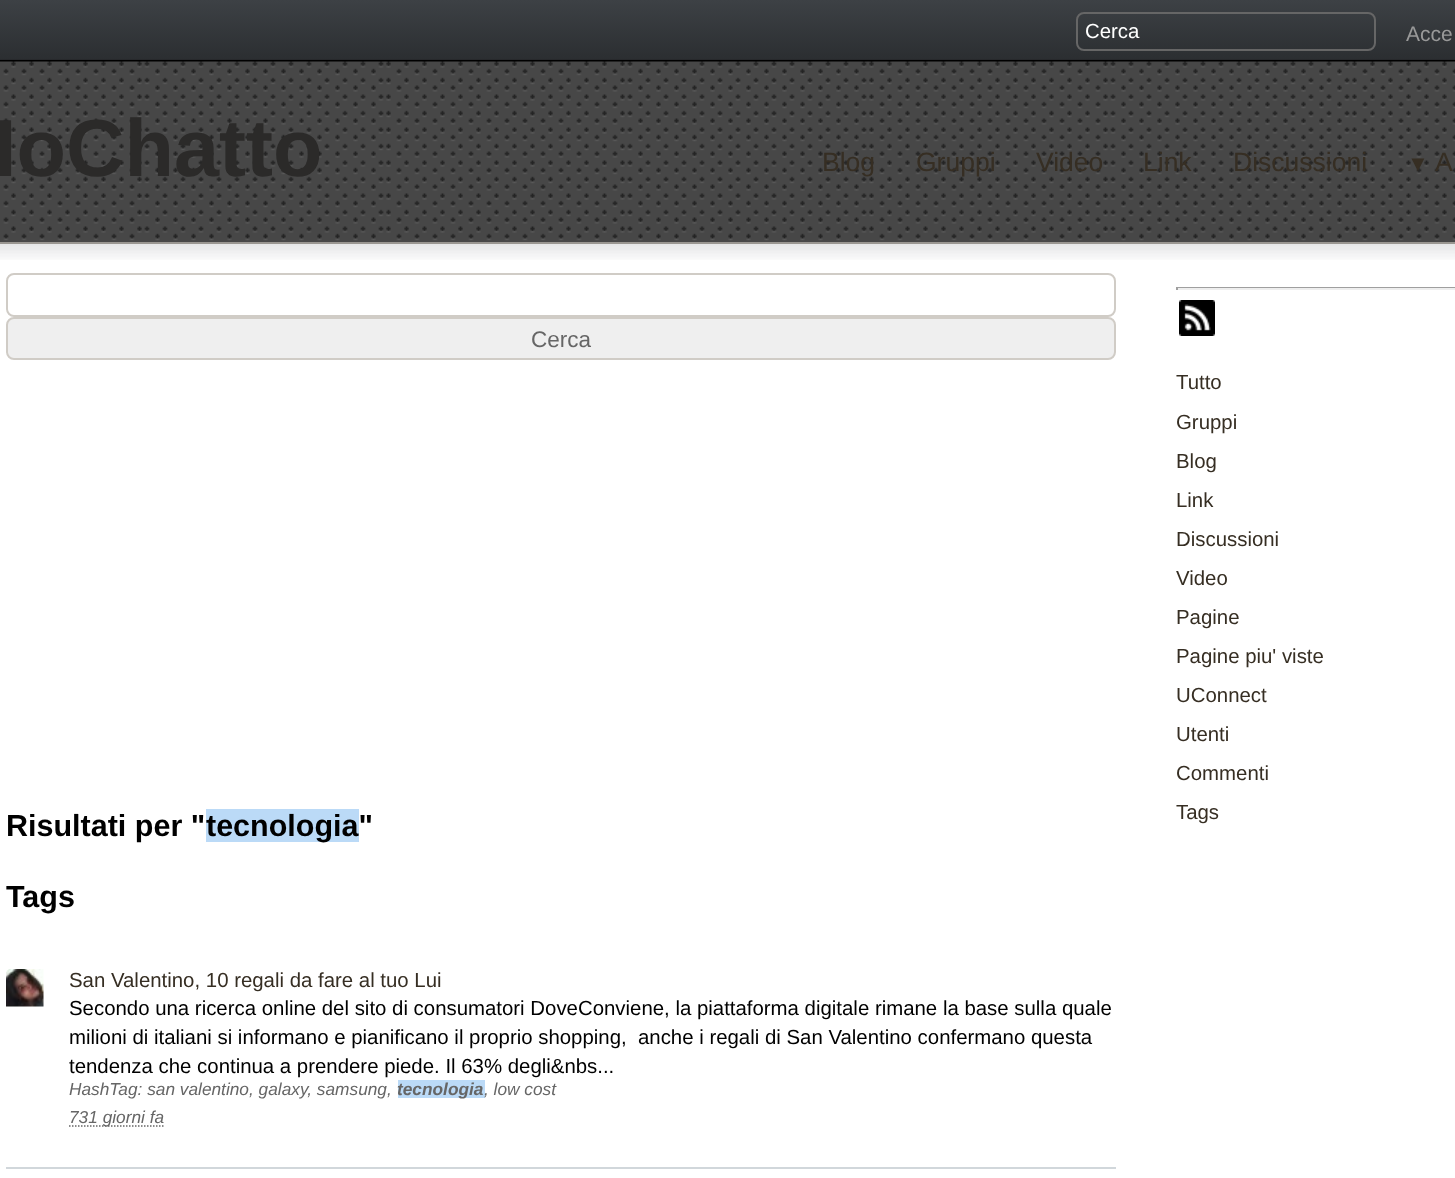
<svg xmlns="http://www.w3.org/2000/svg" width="1455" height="1178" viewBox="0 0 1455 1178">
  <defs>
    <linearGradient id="g1" gradientUnits="userSpaceOnUse" x1="749" y1="0" x2="749" y2="60"><stop offset="0" stop-color="rgb(61,65,69)"/><stop offset="1" stop-color="rgb(43,46,49)"/></linearGradient>
    <linearGradient id="g2" gradientUnits="userSpaceOnUse" x1="749" y1="0" x2="749" y2="60"><stop offset="0" stop-color="rgb(55,59,62)"/><stop offset="1" stop-color="rgb(39,41,44)"/></linearGradient>
  </defs>
  <rect width="100%" height="100%" fill="rgb(255,255,255)"/>
  <rect x="0" y="0" width="1455" height="59" fill="url(#g1)"/>
  <rect x="0" y="59" width="1455" height="1" fill="url(#g2)"/>
  <rect x="0" y="60" width="1455" height="2" fill="rgb(0,0,0)"/>
  <rect x="1077" y="13" width="298" height="37" rx="7" fill="none" stroke="rgb(102,102,102)" stroke-width="2"/>
  <text x="1085" y="38" font-family="Liberation Sans" font-size="20.4" fill="rgb(255,255,255)">Cerca</text>
  <text x="1406" y="41" font-family="Liberation Sans" font-size="21" fill="rgb(153,153,153)">Acce</text>
  <image x="0" y="61" width="1455" height="181" href="pic1.png"/>
  <rect x="0" y="242" width="1455" height="2" fill="rgb(153,150,145)"/>
  <text x="-6" y="176" font-family="Liberation Sans" font-size="81" font-weight="bold" fill="rgb(43,42,41)">IoChatto</text>
  <g font-family="Liberation Sans" font-size="26.5" fill="rgb(54,46,35)">
    <text x="822" y="171">Blog</text>
    <text x="916" y="171">Gruppi</text>
    <text x="1036" y="171">Video</text>
    <text x="1143" y="171">Link</text>
    <text x="1233" y="171">Discussioni</text>
  </g>
  <text x="1407" y="171" font-family="Liberation Sans" font-size="22" fill="rgb(54,46,35)">▼</text>
  <text x="1435" y="171" font-family="Liberation Sans" font-size="26.5" fill="rgb(54,46,35)">A</text>
  <image x="0" y="244" width="1455" height="16" href="pic2.png"/>
  <rect x="7" y="274" width="1108" height="42" rx="7" fill="none" stroke="rgb(208,204,198)" stroke-width="2"/>
  <rect x="7" y="318" width="1108" height="41" rx="7" fill="rgb(239,239,239)" stroke="rgb(208,204,198)" stroke-width="2"/>
  <text x="531" y="347" font-family="Liberation Sans" font-size="22.5" fill="rgb(102,102,102)">Cerca</text>
  <text x="6" y="836" font-family="Liberation Sans" font-size="30.5" font-weight="bold" fill="rgb(0,0,0)">Risultati per "</text>
  <rect x="206" y="809" width="153" height="33" fill="rgb(187,218,247)"/>
  <g font-family="Liberation Sans" font-size="30.5" font-weight="bold" fill="rgb(0,0,0)">
    <text x="206" y="836">tecnologia"</text>
    <text x="6" y="907">Tags</text>
  </g>
  <rect x="6" y="1167" width="1110" height="2" fill="rgb(209,215,219)"/>
  <image x="6" y="969" width="38" height="38" href="pic3.png"/>
  <text x="69" y="987" font-family="Liberation Sans" font-size="20.4" fill="rgb(54,46,35)">San Valentino, 10 regali da fare al tuo Lui</text>
  <g font-family="Liberation Sans" font-size="20.4" fill="rgb(0,0,0)">
    <text xml:space="preserve"><tspan x="69" y="1015">Secondo una ricerca online del sito di consumatori DoveConviene, la piattaforma digitale rimane la base sulla quale</tspan><tspan x="69" y="1044">milioni di italiani si informano e pianificano il proprio shopping,  anche i regali di San Valentino confermano questa</tspan><tspan x="69" y="1073">tendenza che continua a prendere piede. Il 63% degli&amp;nbs...</tspan></text>
  </g>
  <text x="69" y="1095" font-family="Liberation Sans" font-size="17.3" font-style="italic" fill="rgb(102,102,102)">HashTag: san valentino, galaxy, samsung,</text>
  <rect x="398" y="1080" width="87" height="18" fill="rgb(187,218,247)"/>
  <text x="397" y="1095" font-family="Liberation Sans" font-size="17.3" font-weight="bold" font-style="italic" fill="rgb(102,102,102)">tecnologia</text>
  <text x="484" y="1095" font-family="Liberation Sans" font-size="17.3" font-style="italic" fill="rgb(102,102,102)">, low cost</text>
  <path d="M69 1126H164.5" fill="none" stroke="rgb(102,102,102)" stroke-width="1.5" stroke-dasharray="1.5 1.5"/>
  <text x="69" y="1123" font-family="Liberation Sans" font-size="17.3" font-style="italic" fill="rgb(102,102,102)">731 giorni fa</text>
  <rect x="1176" y="287" width="279" height="1" fill="rgb(159,159,159)"/>
  <rect x="1176" y="288" width="279" height="2" fill="rgb(238,238,238)"/>
  <rect x="1176" y="287" width="2" height="3" fill="rgb(159,159,159)"/>
  <image x="1179" y="300" width="36" height="36" href="pic4.png"/>
  <g font-family="Liberation Sans" font-size="20.4" fill="rgb(54,46,35)">
    <text>
      <tspan x="1176" y="389">Tutto</tspan>
      <tspan x="1176" y="429">Gruppi</tspan>
      <tspan x="1176" y="468">Blog</tspan>
      <tspan x="1176" y="507">Link</tspan>
      <tspan x="1176" y="546">Discussioni</tspan>
      <tspan x="1176" y="585">Video</tspan>
      <tspan x="1176" y="624">Pagine</tspan>
      <tspan x="1176" y="663">Pagine piu' viste</tspan>
      <tspan x="1176" y="702">UConnect</tspan>
      <tspan x="1176" y="741">Utenti</tspan>
      <tspan x="1176" y="780">Commenti</tspan>
      <tspan x="1176" y="819">Tags</tspan>
    </text>
  </g>
</svg>
